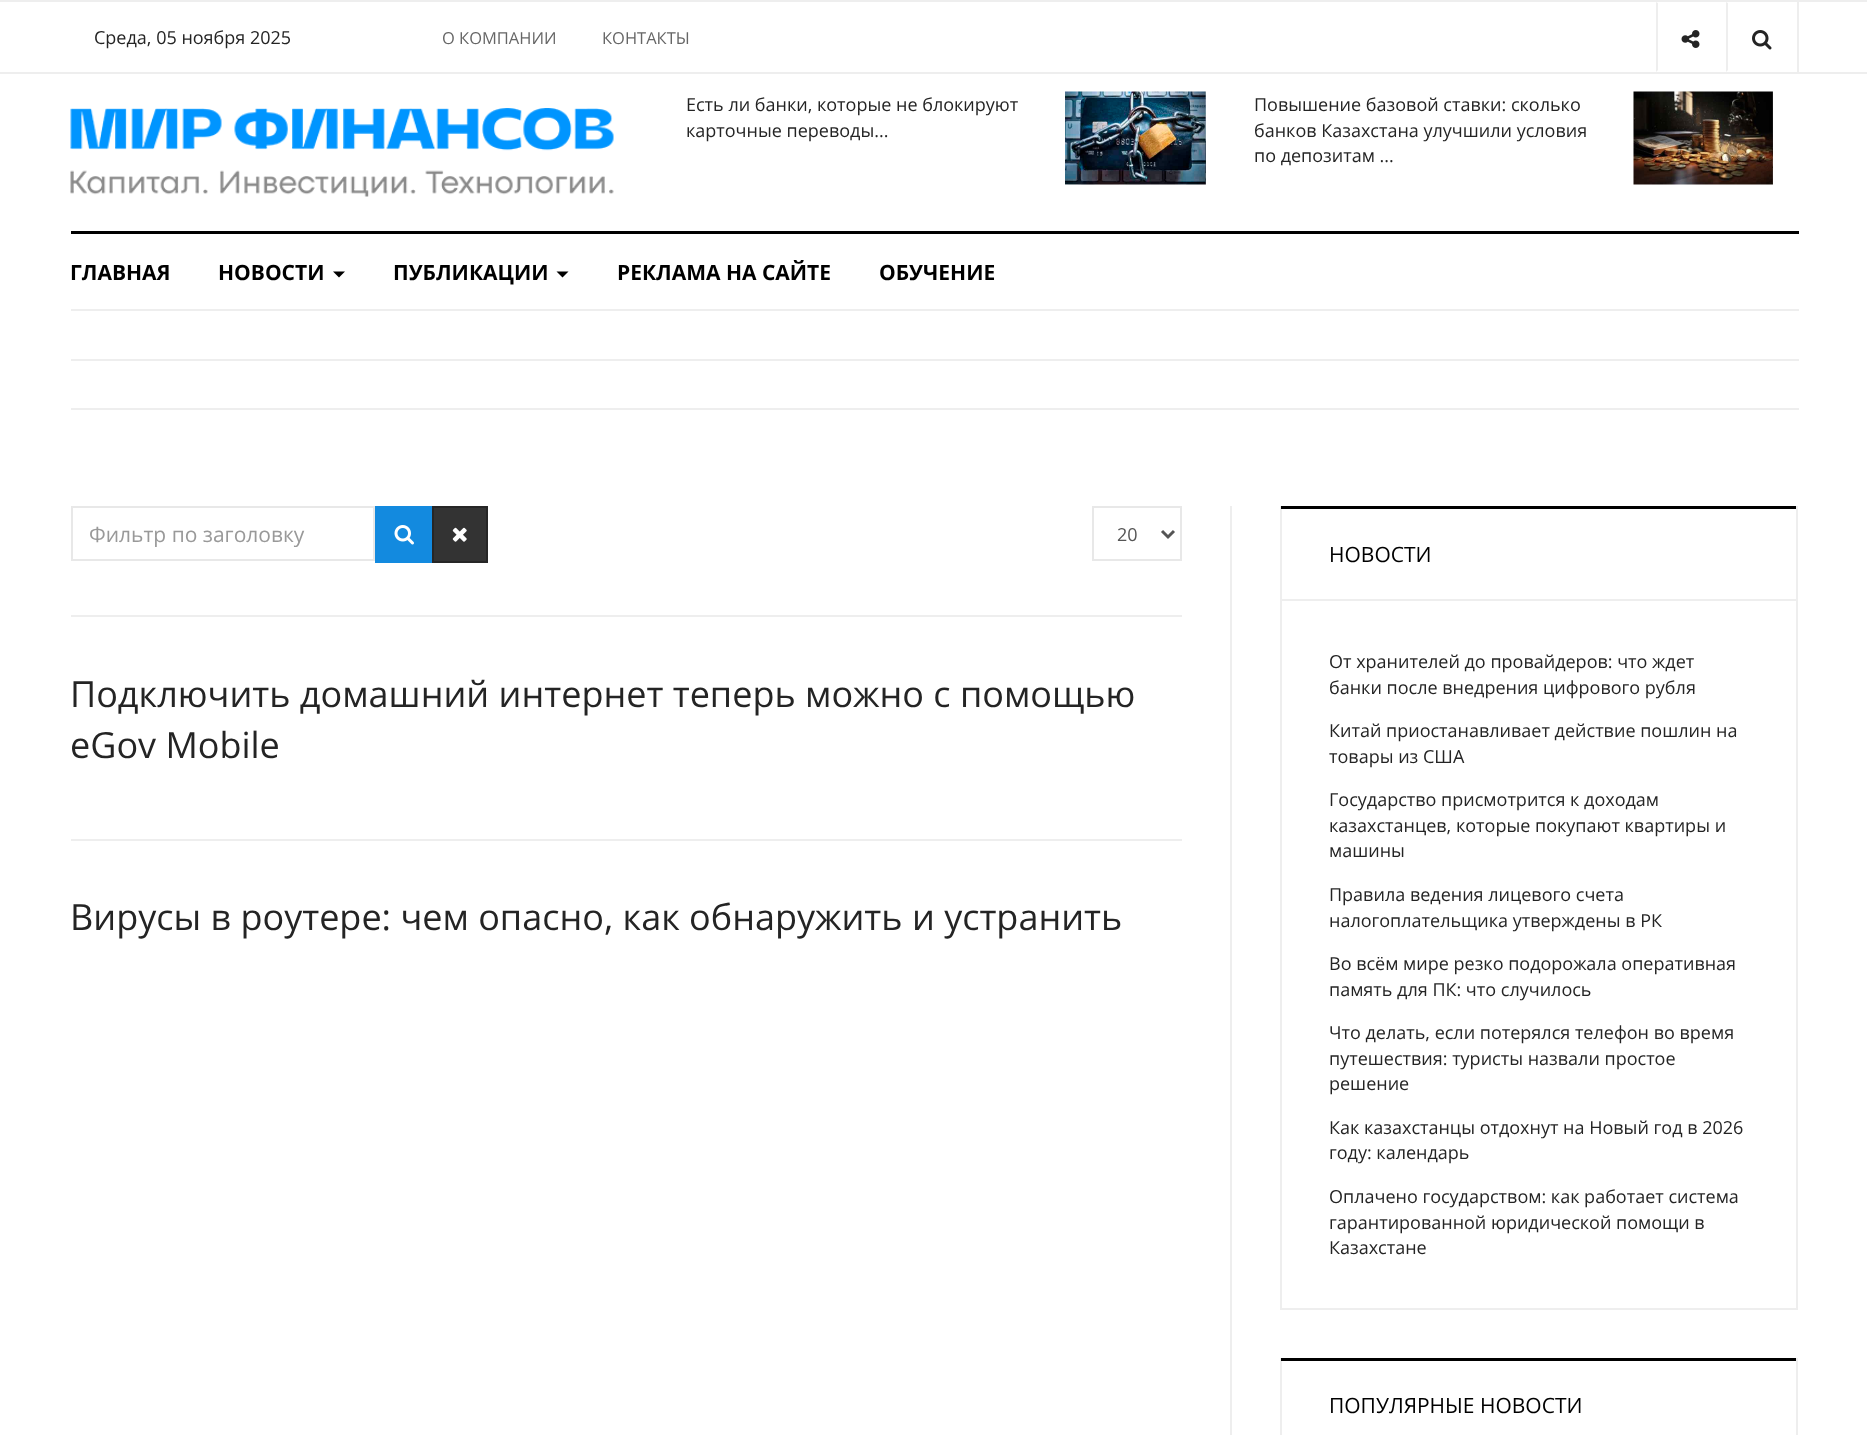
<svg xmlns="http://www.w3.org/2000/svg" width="1867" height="1435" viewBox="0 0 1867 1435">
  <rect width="100%" height="100%" fill="rgb(255,255,255)"/>
  <rect x="0" y="0" width="1867" height="2" fill="rgb(238,238,238)"/>
  <rect x="0" y="72" width="1867" height="2" fill="rgb(238,238,238)"/>
  <text x="94" y="44" font-family="Open Sans" font-size="18" fill="rgb(36,36,36)">Среда, 05 ноября 2025</text>
  <g font-family="Open Sans" font-size="16.5" fill="rgb(102,102,102)">
    <text x="442" y="44">О КОМПАНИИ</text>
    <text x="602" y="44">КОНТАКТЫ</text>
  </g>
  <path d="M1656 72V2L1658 3V70Z" fill="rgb(238,238,238)"/>
  <image x="1681" y="30" width="19" height="18" href="pic1.png"/>
  <rect x="1797" y="2" width="2" height="70" fill="rgb(238,238,238)"/>
  <path d="M1726 72V2L1728 3V70Z" fill="rgb(238,238,238)"/>
  <image x="1752" y="30" width="20" height="20" href="pic2.png"/>
  <image x="70" y="108" width="544" height="89" href="pic3.png"/>
  <g font-family="Open Sans" font-size="18" fill="rgb(36,36,36)">
    <text>
      <tspan x="686" y="111">Есть ли банки, которые не блокируют</tspan>
      <tspan x="686" y="137">карточные переводы...</tspan>
    </text>
  </g>
  <image x="1065" y="91" width="141" height="94" href="pic4.png"/>
  <g font-family="Open Sans" font-size="18" fill="rgb(36,36,36)">
    <text>
      <tspan x="1254" y="111">Повышение базовой ставки: сколько</tspan>
      <tspan x="1254" y="137">банков Казахстана улучшили условия</tspan>
      <tspan x="1254" y="162">по депозитам ...</tspan>
    </text>
  </g>
  <image x="1633" y="91" width="140" height="94" href="pic5.png"/>
  <rect x="71" y="231" width="1728" height="3" fill="rgb(0,0,0)"/>
  <rect x="71" y="309" width="1728" height="2" fill="rgb(238,238,238)"/>
  <g font-family="Open Sans" font-size="21" font-weight="bold" fill="rgb(0,0,0)">
    <text x="70" y="280">ГЛАВНАЯ</text>
    <text x="218" y="280">НОВОСТИ</text>
  </g>
  <path d="M333 271.5H345L339 277.5Z" fill="rgb(0,0,0)"/>
  <text x="393" y="280" font-family="Open Sans" font-size="21" font-weight="bold" fill="rgb(0,0,0)">ПУБЛИКАЦИИ</text>
  <path d="M556.5 271.5H568.5L562.5 277.5Z" fill="rgb(0,0,0)"/>
  <g font-family="Open Sans" font-size="21" font-weight="bold" fill="rgb(0,0,0)">
    <text x="617" y="280">РЕКЛАМА НА САЙТЕ</text>
    <text x="879" y="280">ОБУЧЕНИЕ</text>
  </g>
  <rect x="71" y="359" width="1728" height="2" fill="rgb(238,238,238)"/>
  <rect x="71" y="408" width="1728" height="2" fill="rgb(238,238,238)"/>
  <rect x="71" y="615" width="1111" height="2" fill="rgb(238,238,238)"/>
  <rect x="72" y="507" width="302" height="53" fill="none" stroke="rgb(232,232,232)" stroke-width="2"/>
  <text x="89" y="542" font-family="Open Sans" font-size="21" fill="rgb(153,153,153)">Фильтр по заголовку</text>
  <rect x="375" y="506" width="57" height="57" fill="rgb(19,138,223)"/>
  <image x="394" y="525" width="20" height="20" href="pic6.png"/>
  <rect x="433" y="507" width="54" height="55" fill="rgb(51,51,51)" stroke="rgb(38,38,38)" stroke-width="2"/>
  <image x="452" y="527" width="15" height="15" href="pic7.png"/>
  <rect x="1093" y="507" width="88" height="53" fill="none" stroke="rgb(232,232,232)" stroke-width="2"/>
  <path d="M1162 531L1168 537L1174 531" fill="none" stroke="rgb(85,85,85)" stroke-width="3"/>
  <text x="1117" y="541" font-family="Open Sans" font-size="18" fill="rgb(85,85,85)">20</text>
  <rect x="71" y="839" width="1111" height="2" fill="rgb(238,238,238)"/>
  <g font-family="Open Sans" font-size="36" fill="rgb(36,36,36)">
    <text>
      <tspan x="70" y="707">Подключить домашний интернет теперь можно с помощью</tspan>
      <tspan x="70" y="758">eGov Mobile</tspan>
    </text>
    <text x="70" y="930">Вирусы в роутере: чем опасно, как обнаружить и устранить</text>
  </g>
  <rect x="1230" y="506" width="2" height="929" fill="rgb(238,238,238)"/>
  <rect x="1796" y="506" width="2" height="804" fill="rgb(238,238,238)"/>
  <rect x="1280" y="1308" width="517" height="2" fill="rgb(238,238,238)"/>
  <rect x="1280" y="506" width="2" height="804" fill="rgb(238,238,238)"/>
  <rect x="1281" y="506" width="515" height="3" fill="rgb(0,0,0)"/>
  <text x="1329" y="562" font-family="Open Sans" font-size="21" fill="rgb(0,0,0)">НОВОСТИ</text>
  <rect x="1281" y="599" width="515" height="2" fill="rgb(238,238,238)"/>
  <g font-family="Open Sans" font-size="18" fill="rgb(36,36,36)">
    <text>
      <tspan x="1329" y="668">От хранителей до провайдеров: что ждет</tspan>
      <tspan x="1329" y="694">банки после внедрения цифрового рубля</tspan>
    </text>
    <text>
      <tspan x="1329" y="737">Китай приостанавливает действие пошлин на</tspan>
      <tspan x="1329" y="763">товары из США</tspan>
    </text>
    <text>
      <tspan x="1329" y="806">Государство присмотрится к доходам</tspan>
      <tspan x="1329" y="832">казахстанцев, которые покупают квартиры и</tspan>
      <tspan x="1329" y="857">машины</tspan>
    </text>
    <text>
      <tspan x="1329" y="901">Правила ведения лицевого счета</tspan>
      <tspan x="1329" y="927">налогоплательщика утверждены в РК</tspan>
    </text>
    <text>
      <tspan x="1329" y="970">Во всём мире резко подорожала оперативная</tspan>
      <tspan x="1329" y="996">память для ПК: что случилось</tspan>
    </text>
    <text>
      <tspan x="1329" y="1039">Что делать, если потерялся телефон во время</tspan>
      <tspan x="1329" y="1065">путешествия: туристы назвали простое</tspan>
      <tspan x="1329" y="1090">решение</tspan>
    </text>
    <text>
      <tspan x="1329" y="1134">Как казахстанцы отдохнут на Новый год в 2026</tspan>
      <tspan x="1329" y="1159">году: календарь</tspan>
    </text>
    <text>
      <tspan x="1329" y="1203">Оплачено государством: как работает система</tspan>
      <tspan x="1329" y="1229">гарантированной юридической помощи в</tspan>
      <tspan x="1329" y="1254">Казахстане</tspan>
    </text>
  </g>
  <rect x="1796" y="1358" width="2" height="77" fill="rgb(238,238,238)"/>
  <rect x="1280" y="1358" width="2" height="77" fill="rgb(238,238,238)"/>
  <rect x="1281" y="1358" width="515" height="3" fill="rgb(0,0,0)"/>
  <text x="1329" y="1413" font-family="Open Sans" font-size="21" fill="rgb(0,0,0)">ПОПУЛЯРНЫЕ НОВОСТИ</text>
</svg>
